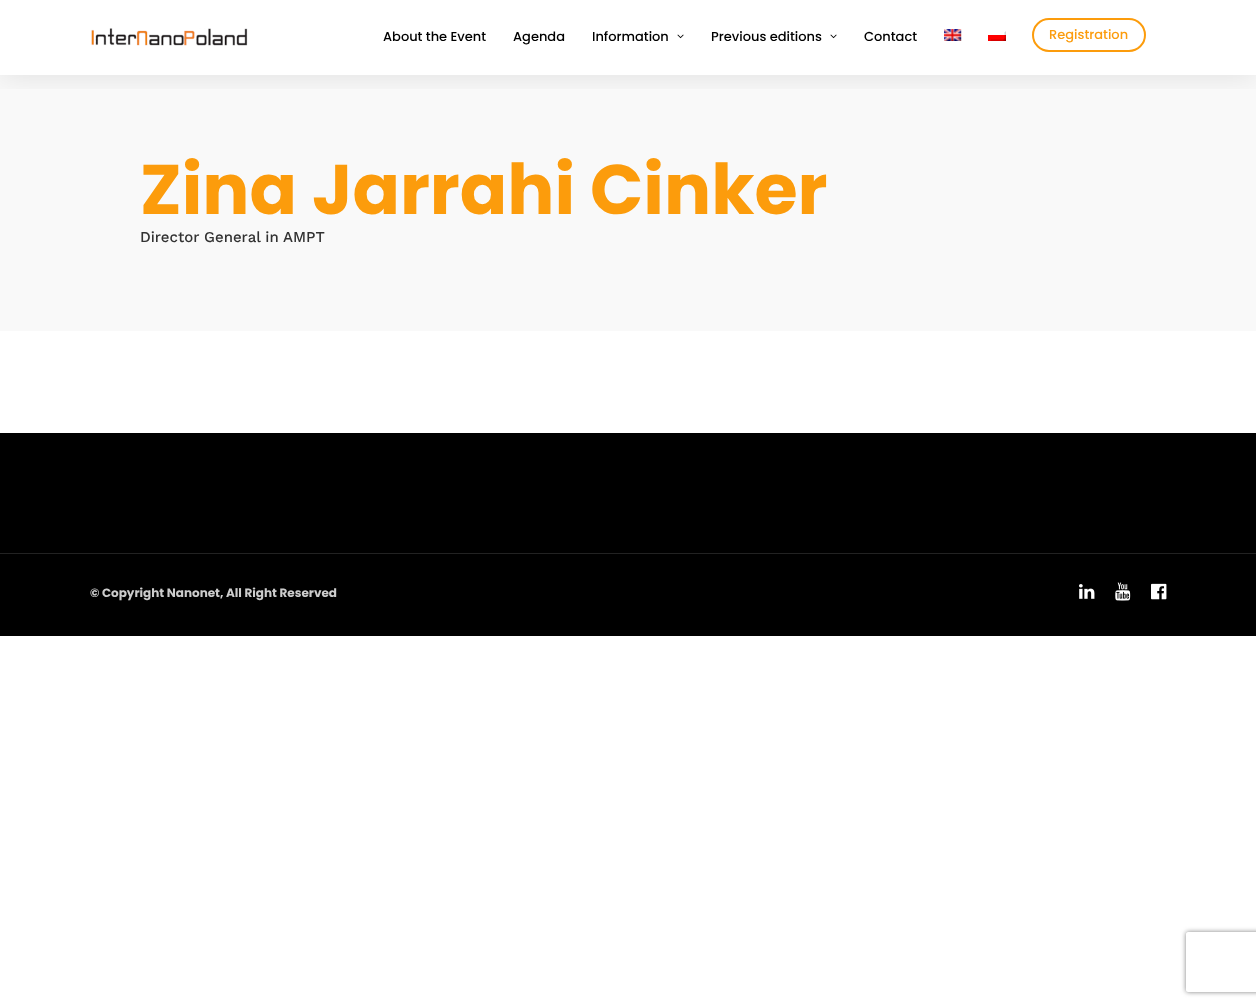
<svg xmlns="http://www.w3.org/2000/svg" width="1256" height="1006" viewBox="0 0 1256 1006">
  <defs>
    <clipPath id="clip1"><rect x="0" y="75" width="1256" height="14"/></clipPath>
    <clipPath id="clip2"><path d="M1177 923H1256V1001H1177ZM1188 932H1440C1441 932 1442 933 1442 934V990C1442 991 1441 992 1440 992H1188C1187 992 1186 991 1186 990V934C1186 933 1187 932 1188 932Z" clip-rule="evenodd"/></clipPath>
  </defs>
  <rect width="100%" height="100%" fill="rgb(255,255,255)"/>
  <rect x="0" y="75" width="1256" height="256" fill="rgb(249,249,249)"/>
  <g clip-path="url(#clip1)">
    <rect x="0" y="1" width="1256" height="75" fill="rgba(0,0,0,0.1)" filter="blur(15px)"/>
  </g>
  <image x="91" y="28" width="157" height="18" href="pic1.png"/>
  <g font-family="Poppins" font-size="13" font-weight="500" fill="rgb(0,0,0)">
    <text x="383" y="41">About the Event</text>
    <text x="513" y="41">Agenda</text>
    <text x="592" y="41">Information</text>
  </g>
  <image x="677" y="34" width="7" height="5" href="pic2.png"/>
  <text x="711" y="41" font-family="Poppins" font-size="13" font-weight="500" fill="rgb(0,0,0)">Previous editions</text>
  <image x="830" y="34" width="7" height="5" href="pic2.png"/>
  <text x="864" y="41" font-family="Poppins" font-size="13" font-weight="500" fill="rgb(0,0,0)">Contact</text>
  <image x="944" y="29" width="18" height="12" href="pic3.png"/>
  <image x="988" y="31" width="18" height="10" href="pic4.png"/>
  <rect x="1033" y="19" width="112" height="32" rx="16" fill="none" stroke="rgb(252,156,12)" stroke-width="2"/>
  <text x="1049" y="39" font-family="Poppins" font-size="13" font-weight="500" fill="rgb(252,156,12)">Registration</text>
  <text x="140" y="214" font-family="Poppins" font-size="70" font-weight="bold" fill="rgb(252,156,12)">Zina Jarrahi Cinker</text>
  <text x="140" y="242" font-family="Work Sans" font-size="15" font-weight="500" fill="rgb(50,50,50)">Director General in AMPT</text>
  <rect x="0" y="433" width="1256" height="120" fill="rgb(0,0,0)"/>
  <rect x="0" y="554" width="1256" height="82" fill="rgb(0,0,0)"/>
  <rect x="0" y="553" width="1256" height="1" fill="rgb(34,34,34)"/>
  <text x="90" y="597" font-family="Poppins" font-size="12" font-weight="bold" fill="rgb(204,204,204)">© Copyright Nanonet, All Right Reserved</text>
  <image x="1079" y="584" width="16" height="15" href="pic5.png"/>
  <image x="1115" y="582" width="16" height="19" href="pic6.png"/>
  <image x="1151" y="583" width="16" height="17" href="pic7.png"/>
  <g clip-path="url(#clip2)">
    <rect x="1186" y="932" width="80" height="60" rx="2" fill="rgb(128,128,128)" filter="blur(2.5px)"/>
  </g>
</svg>
